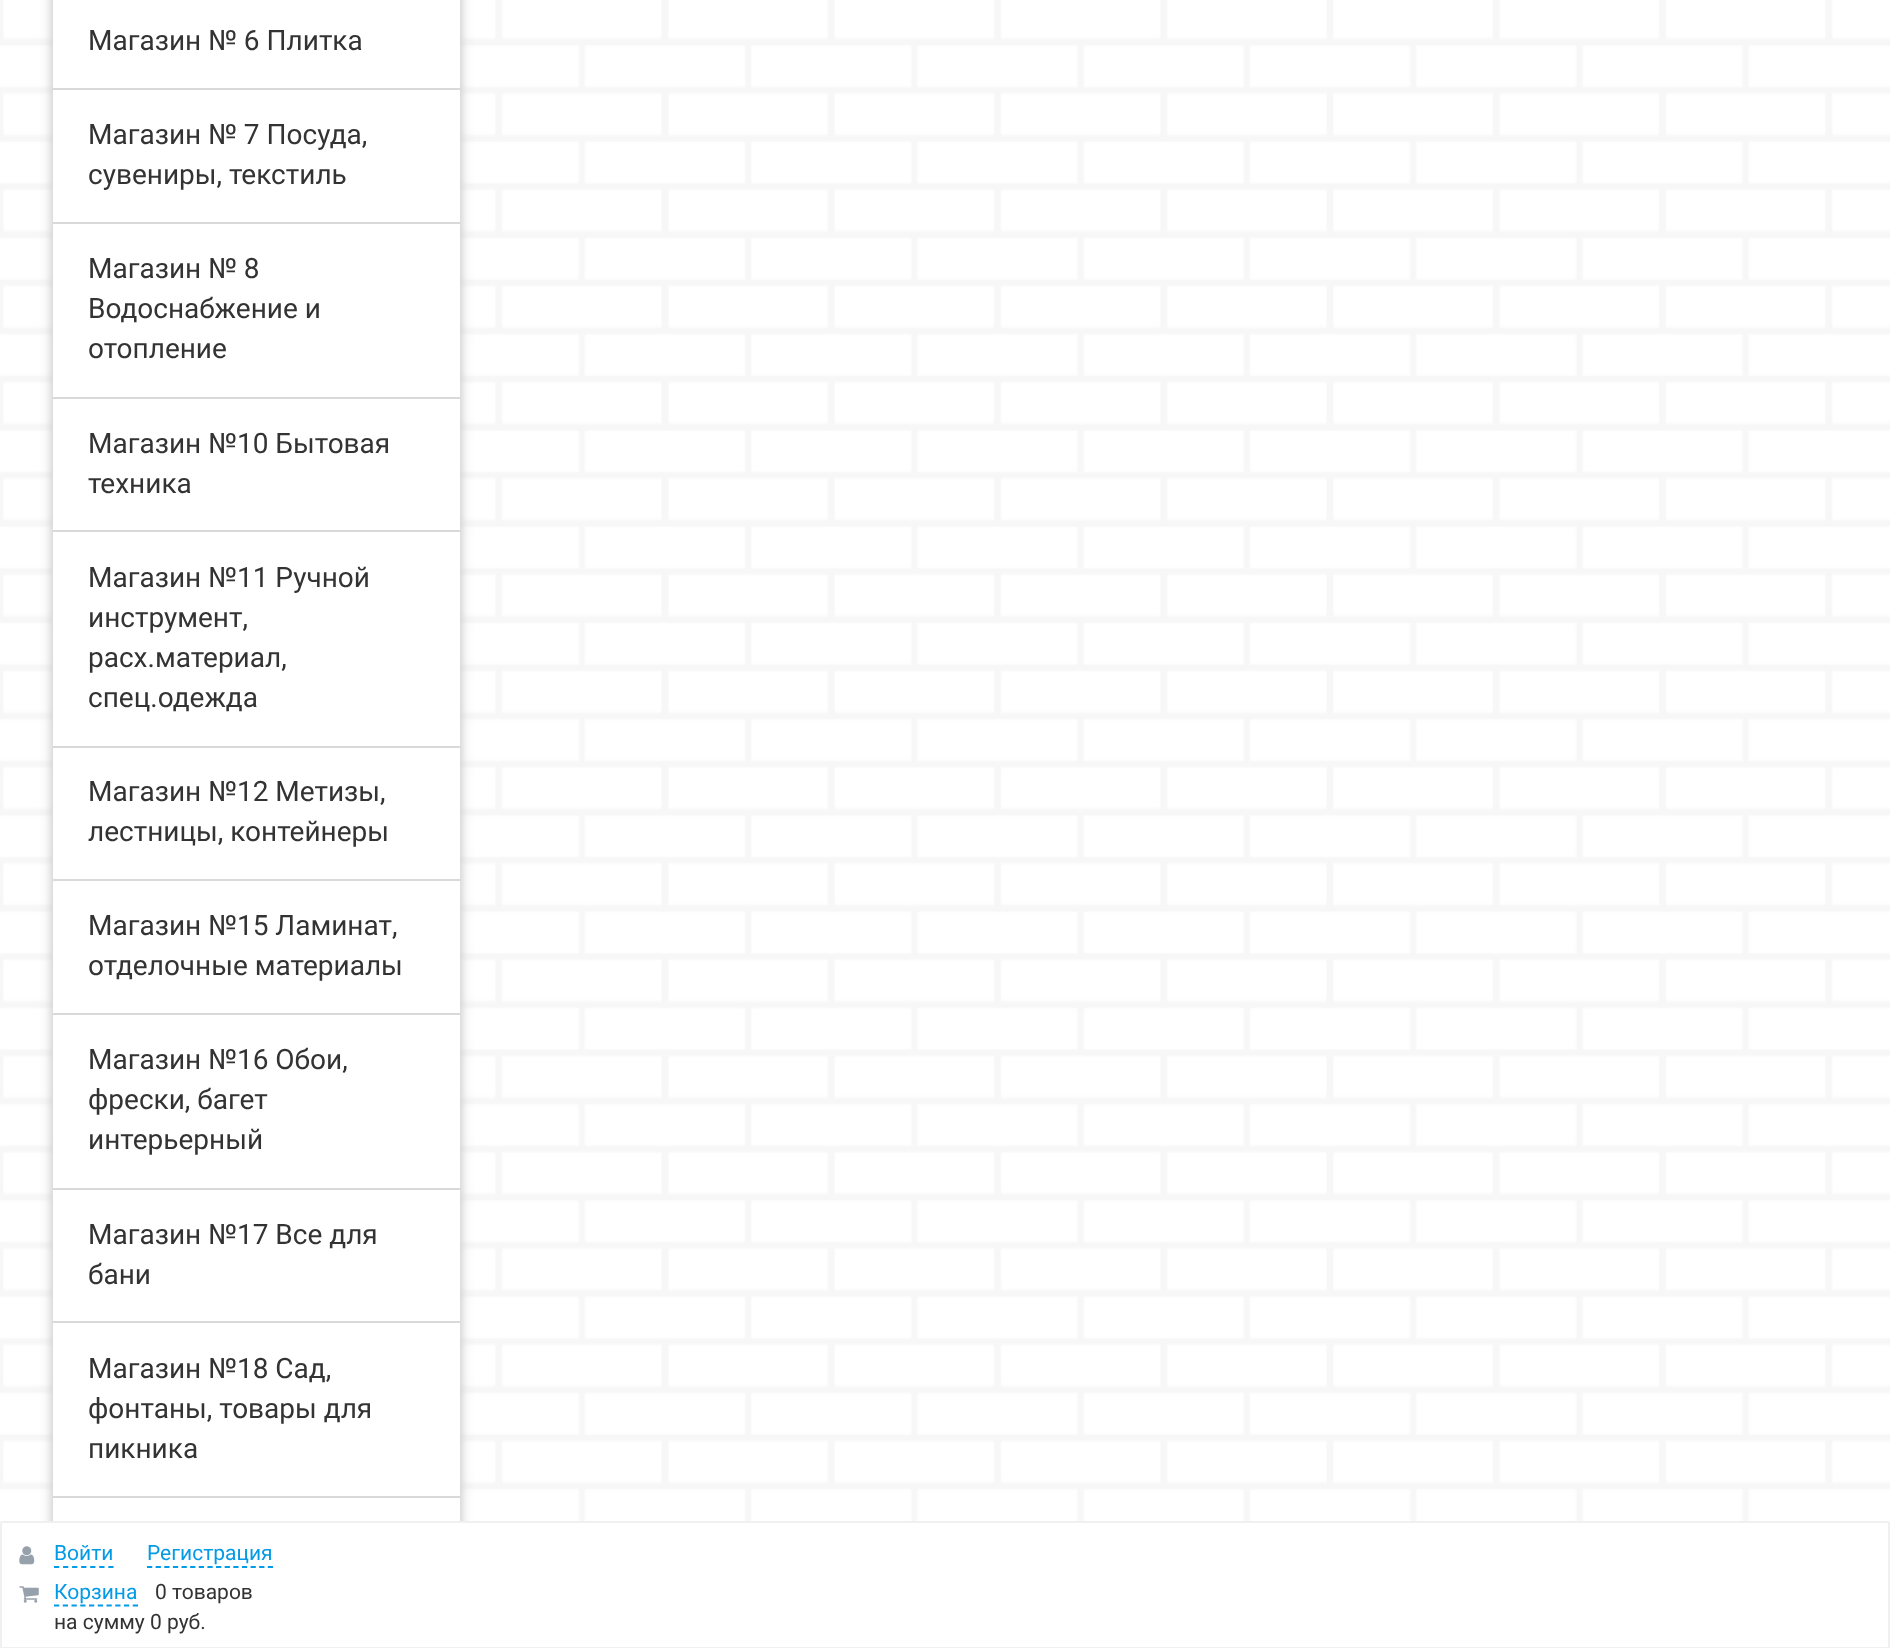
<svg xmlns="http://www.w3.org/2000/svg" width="1890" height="1648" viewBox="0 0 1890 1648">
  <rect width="100%" height="100%" fill="rgb(255,255,255)"/>
  <image x="0" y="0" width="1890" height="1648" href="pic1.png"/>
  <rect x="53" y="-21" width="407" height="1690" fill="rgb(208,208,208)" filter="blur(7px)"/>
  <rect x="53" y="-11" width="407" height="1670" fill="rgb(208,208,208)" filter="blur(3.5px)"/>
  <rect x="53" y="0" width="407" height="1521" fill="rgb(255,255,255)"/>
  <text x="88" y="50" font-family="Roboto" font-size="28" fill="rgb(51,51,51)">Магазин № 6 Плитка</text>
  <rect x="53" y="88" width="407" height="2" fill="rgb(217,217,217)"/>
  <g font-family="Roboto" font-size="28" fill="rgb(51,51,51)">
    <text>
      <tspan x="88" y="144">Магазин № 7 Посуда,</tspan>
      <tspan x="88" y="184">сувениры, текстиль</tspan>
    </text>
  </g>
  <rect x="53" y="222" width="407" height="2" fill="rgb(217,217,217)"/>
  <g font-family="Roboto" font-size="28" fill="rgb(51,51,51)">
    <text>
      <tspan x="88" y="278">Магазин № 8</tspan>
      <tspan x="88" y="318">Водоснабжение и</tspan>
      <tspan x="88" y="358">отопление</tspan>
    </text>
  </g>
  <rect x="53" y="397" width="407" height="2" fill="rgb(217,217,217)"/>
  <g font-family="Roboto" font-size="28" fill="rgb(51,51,51)">
    <text>
      <tspan x="88" y="453">Магазин №10 Бытовая</tspan>
      <tspan x="88" y="493">техника</tspan>
    </text>
  </g>
  <rect x="53" y="530" width="407" height="2" fill="rgb(217,217,217)"/>
  <g font-family="Roboto" font-size="28" fill="rgb(51,51,51)">
    <text>
      <tspan x="88" y="587">Магазин №11 Ручной</tspan>
      <tspan x="88" y="627">инструмент,</tspan>
      <tspan x="88" y="667">расх.материал,</tspan>
      <tspan x="88" y="707">спец.одежда</tspan>
    </text>
  </g>
  <rect x="53" y="746" width="407" height="2" fill="rgb(217,217,217)"/>
  <g font-family="Roboto" font-size="28" fill="rgb(51,51,51)">
    <text>
      <tspan x="88" y="801">Магазин №12 Метизы,</tspan>
      <tspan x="88" y="841">лестницы, контейнеры</tspan>
    </text>
  </g>
  <rect x="53" y="879" width="407" height="2" fill="rgb(217,217,217)"/>
  <g font-family="Roboto" font-size="28" fill="rgb(51,51,51)">
    <text>
      <tspan x="88" y="935">Магазин №15 Ламинат,</tspan>
      <tspan x="88" y="975">отделочные материалы</tspan>
    </text>
  </g>
  <rect x="53" y="1013" width="407" height="2" fill="rgb(217,217,217)"/>
  <g font-family="Roboto" font-size="28" fill="rgb(51,51,51)">
    <text>
      <tspan x="88" y="1069">Магазин №16 Обои,</tspan>
      <tspan x="88" y="1109">фрески, багет</tspan>
      <tspan x="88" y="1149">интерьерный</tspan>
    </text>
  </g>
  <rect x="53" y="1188" width="407" height="2" fill="rgb(217,217,217)"/>
  <g font-family="Roboto" font-size="28" fill="rgb(51,51,51)">
    <text>
      <tspan x="88" y="1244">Магазин №17 Все для</tspan>
      <tspan x="88" y="1284">бани</tspan>
    </text>
  </g>
  <rect x="53" y="1321" width="407" height="2" fill="rgb(217,217,217)"/>
  <g font-family="Roboto" font-size="28" fill="rgb(51,51,51)">
    <text>
      <tspan x="88" y="1378">Магазин №18 Сад,</tspan>
      <tspan x="88" y="1418">фонтаны, товары для</tspan>
      <tspan x="88" y="1458">пикника</tspan>
    </text>
  </g>
  <rect x="53" y="1496" width="407" height="2" fill="rgb(217,217,217)"/>
  <rect x="1" y="1522" width="1888" height="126" rx="1" fill="rgb(255,255,255)" stroke="rgb(240,240,240)" stroke-width="2"/>
  <image x="19" y="1546" width="16" height="19" href="pic2.png"/>
  <text x="54" y="1560" font-family="Roboto" font-size="21" fill="rgb(3,155,229)">Войти</text>
  <path d="M54 1567H114" fill="none" stroke="rgb(3,155,229)" stroke-width="1.8" stroke-dasharray="5.25 3.8"/>
  <text x="147" y="1560" font-family="Roboto" font-size="21" fill="rgb(3,155,229)">Регистрация</text>
  <path d="M147 1567H273" fill="none" stroke="rgb(3,155,229)" stroke-width="1.8" stroke-dasharray="5.25 3.38"/>
  <image x="19" y="1586" width="20" height="17" href="pic3.png"/>
  <text x="54" y="1599" font-family="Roboto" font-size="21" fill="rgb(3,155,229)">Корзина</text>
  <path d="M54 1605.5H138" fill="none" stroke="rgb(3,155,229)" stroke-width="1.8" stroke-dasharray="5.25 3.5"/>
  <g font-family="Roboto" font-size="21" fill="rgb(51,51,51)">
    <text x="155" y="1599">0 товаров</text>
    <text x="54" y="1629">на сумму 0 руб.</text>
  </g>
</svg>
